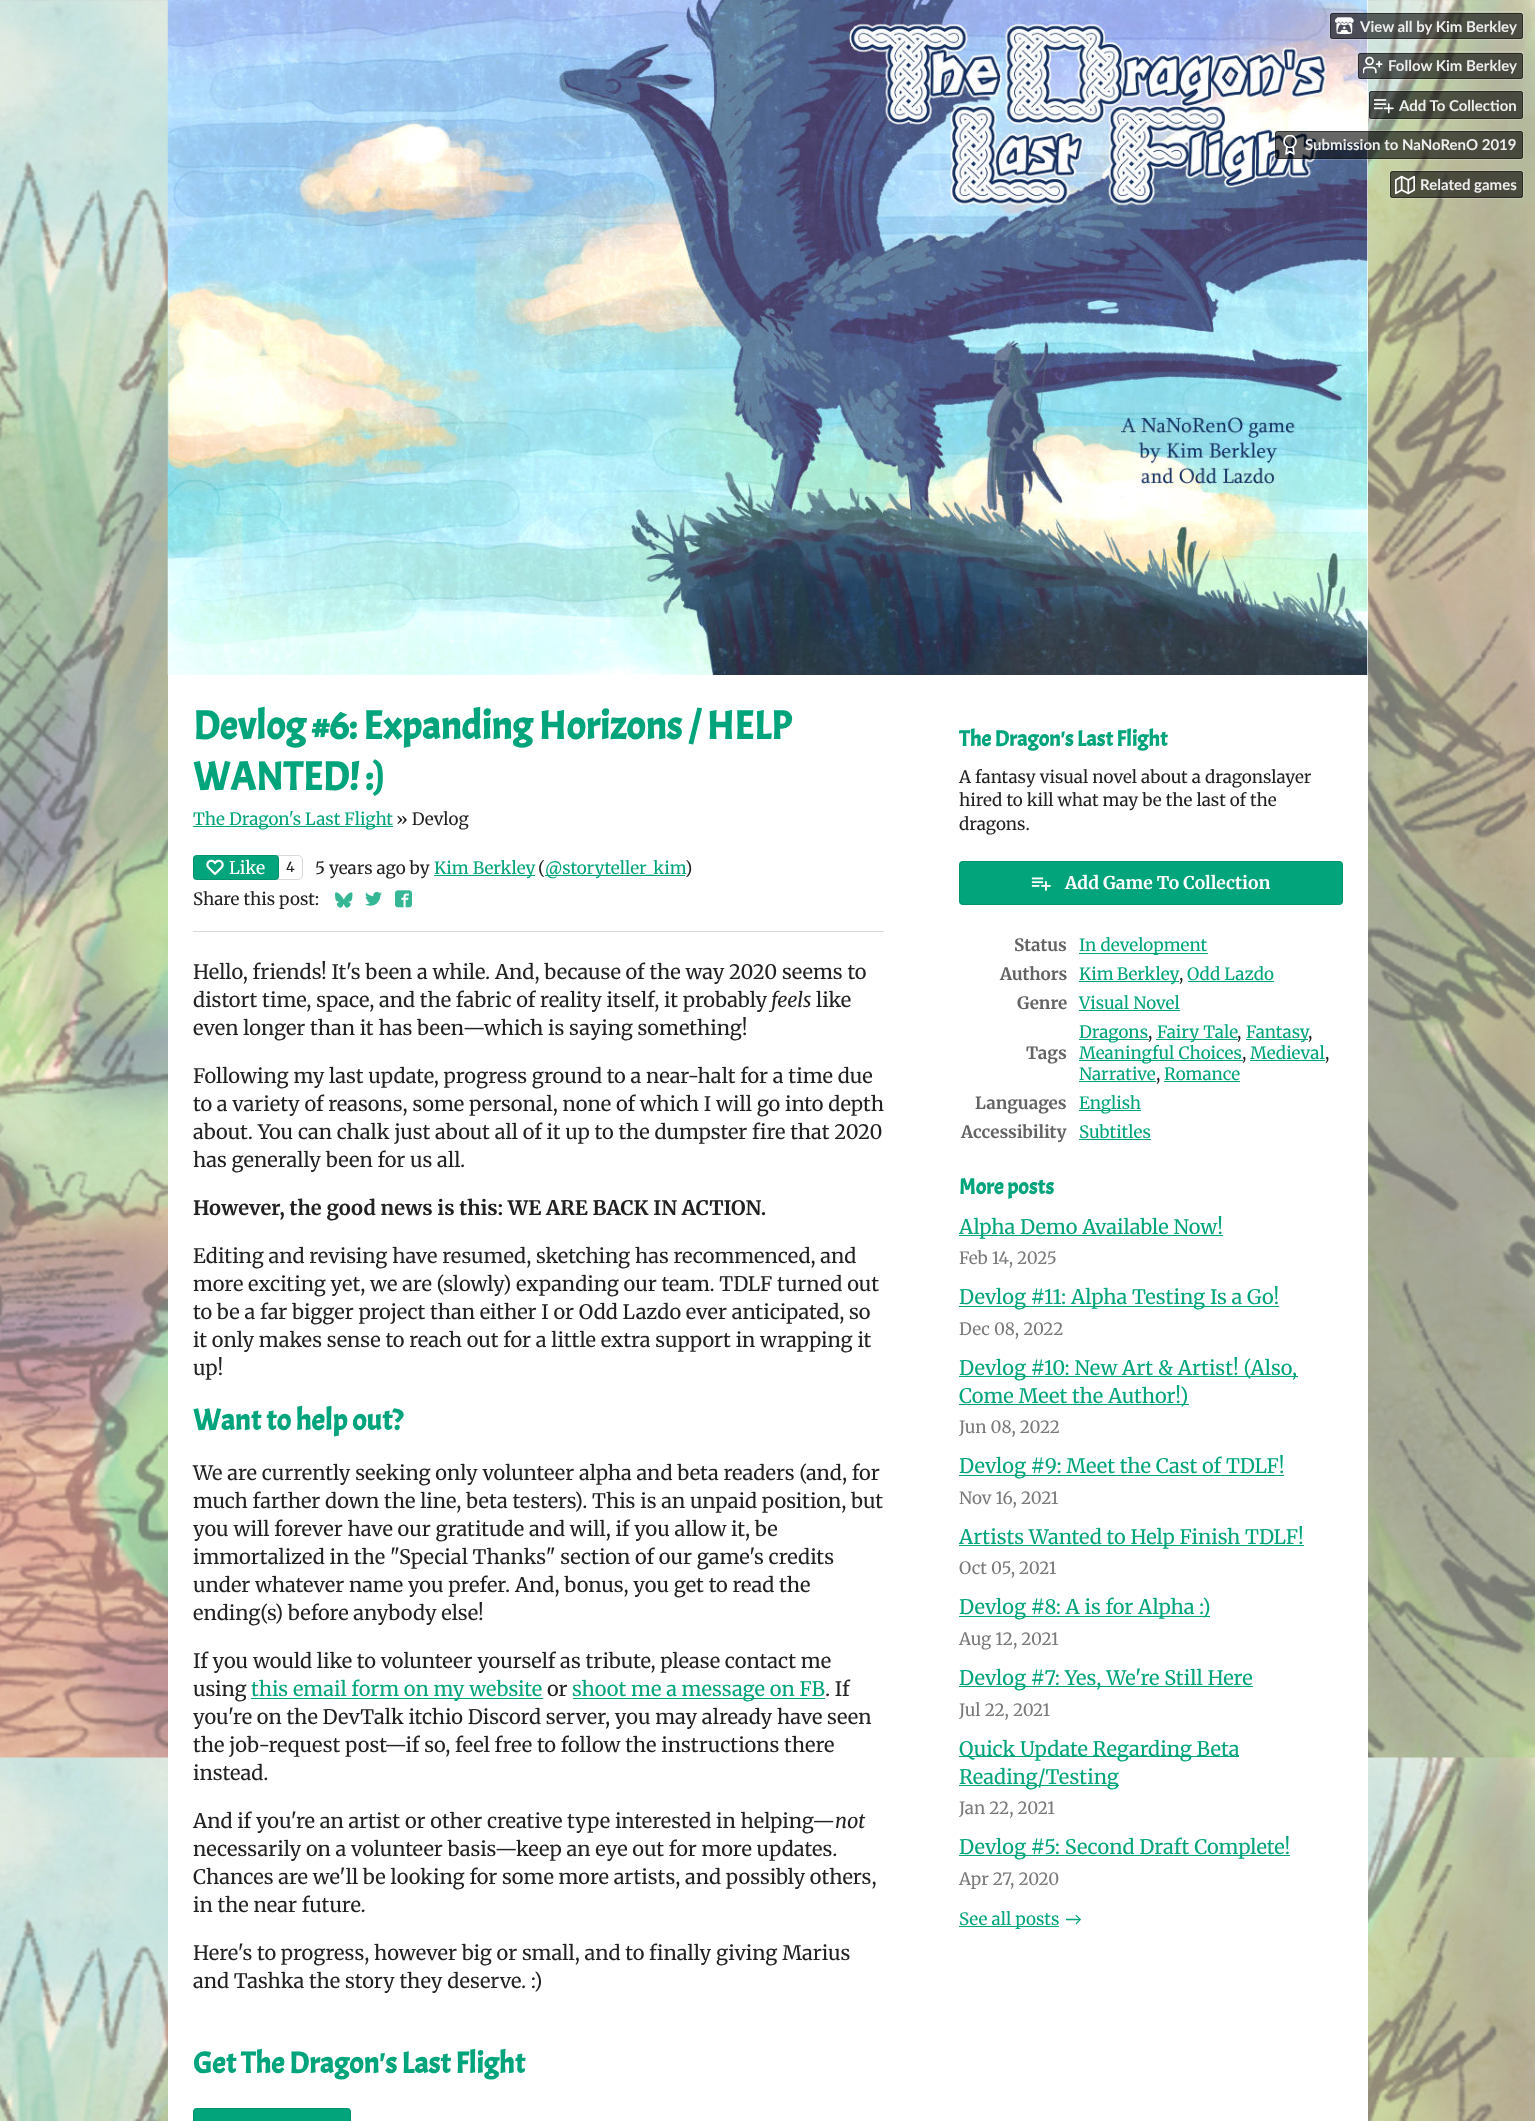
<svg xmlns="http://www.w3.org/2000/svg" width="1535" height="2121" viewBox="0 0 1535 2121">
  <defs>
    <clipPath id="clip1"><rect x="1280" y="135" width="20" height="20"/></clipPath>
  </defs>
  <rect width="100%" height="100%" fill="rgb(255,255,255)"/>
  <image x="0" y="0" width="1535" height="2121" href="pic5.png"/>
  <rect x="168" y="0" width="1200" height="2121" fill="rgb(255,255,255)"/>
  <image x="167" y="0" width="1201" height="675" href="pic6.png"/>
  <rect x="1329.5" y="11.5" width="194" height="28" rx="3.5" fill="none" stroke="rgba(255,255,255,0.2)"/>
  <rect x="1330" y="13" width="193" height="26" rx="2.5" fill="rgba(0,0,0,0.6)"/>
  <rect x="1330.5" y="13.5" width="192" height="25" rx="2" fill="none" stroke="rgba(10,10,10,0.5)"/>
  <image x="1335" y="17" width="19" height="18" href="pic1.png"/>
  <text x="1360" y="32" font-family="Lato" font-size="15" font-weight="bold" fill="rgb(238,238,238)">View all by Kim Berkley</text>
  <rect x="1356.5" y="51.5" width="167" height="28" rx="3.5" fill="none" stroke="rgba(255,255,255,0.2)"/>
  <rect x="1358" y="53" width="165" height="26" rx="2.5" fill="rgba(0,0,0,0.6)"/>
  <rect x="1358.5" y="53.5" width="164" height="25" rx="2" fill="none" stroke="rgba(10,10,10,0.5)"/>
  <image x="1363" y="56" width="20" height="18" href="pic2.png"/>
  <text x="1388" y="71" font-family="Lato" font-size="15" font-weight="bold" fill="rgb(238,238,238)">Follow Kim Berkley</text>
  <rect x="1368.5" y="90.5" width="155" height="29" rx="3.5" fill="none" stroke="rgba(255,255,255,0.2)"/>
  <rect x="1369" y="91" width="154" height="28" rx="2.5" fill="rgba(0,0,0,0.6)"/>
  <rect x="1369.5" y="91.5" width="153" height="27" rx="2" fill="none" stroke="rgba(10,10,10,0.5)"/>
  <image x="1374" y="99" width="20" height="15" href="pic3.png"/>
  <text x="1399" y="111" font-family="Lato" font-size="15" font-weight="bold" fill="rgb(238,238,238)">Add To Collection</text>
  <rect x="1274.5" y="130.5" width="249" height="29" rx="3.5" fill="none" stroke="rgba(255,255,255,0.2)"/>
  <rect x="1275" y="131" width="248" height="28" rx="2.5" fill="rgba(0,0,0,0.6)"/>
  <rect x="1275.5" y="131.5" width="247" height="27" rx="2" fill="none" stroke="rgba(10,10,10,0.5)"/>
  <g clip-path="url(#clip1)">
    <circle cx="1290" cy="141.5" r="6" fill="none" stroke="rgb(255,255,255)" stroke-width="1.7"/>
  </g>
  <path d="M1287 146.5L1286 154L1290 151.5L1294 154L1293 146.5" fill="none" stroke="rgb(255,255,255)" stroke-width="1.7" stroke-linecap="round" stroke-linejoin="round"/>
  <text x="1305" y="150" font-family="Lato" font-size="15" font-weight="bold" fill="rgb(238,238,238)">Submission to NaNoRenO 2019</text>
  <rect x="1389.5" y="170.5" width="134" height="28" rx="3.5" fill="none" stroke="rgba(255,255,255,0.2)"/>
  <rect x="1390" y="171" width="133" height="27" rx="2.5" fill="rgba(0,0,0,0.6)"/>
  <rect x="1390.5" y="171.5" width="132" height="26" rx="2" fill="none" stroke="rgba(10,10,10,0.5)"/>
  <image x="1395" y="175" width="20" height="20" href="pic4.png"/>
  <text x="1420" y="190" font-family="Lato" font-size="15" font-weight="bold" fill="rgb(238,238,238)">Related games</text>
  <g font-family="Acme" font-size="40" font-weight="bold" fill="rgb(2,164,123)">
    <text>
      <tspan x="193" y="739">Devlog #6: Expanding Horizons / HELP</tspan>
      <tspan x="193" y="790">WANTED! :)</tspan>
    </text>
  </g>
  <rect x="193" y="826" width="200" height="1" fill="rgb(2,164,123)"/>
  <text x="193" y="825" font-family="Merriweather" font-size="17" fill="rgb(2,164,123)">The Dragon's Last Flight</text>
  <text x="396" y="825" font-family="Merriweather" font-size="17" fill="rgb(34,34,34)">» Devlog</text>
  <rect x="193.5" y="855.5" width="109" height="24" rx="4.5" fill="none" stroke="rgb(216,216,216)"/>
  <rect x="193" y="855" width="86" height="25" rx="4" fill="rgb(2,164,123)"/>
  <rect x="193.5" y="855.5" width="85" height="24" rx="3.5" fill="none" stroke="rgba(0,0,0,0.1)"/>
  <image x="206" y="859" width="18" height="16" href="pic7.png"/>
  <text x="229" y="874" font-family="Merriweather" font-size="17.5" fill="rgb(255,255,255)">Like</text>
  <text x="286" y="872" font-family="Merriweather" font-size="14" fill="rgb(34,34,34)">4</text>
  <text x="315" y="874" font-family="Merriweather" font-size="17" fill="rgb(34,34,34)">5 years ago by</text>
  <rect x="434" y="875" width="101" height="1" fill="rgb(2,164,123)"/>
  <text x="434" y="874" font-family="Merriweather" font-size="17" fill="rgb(2,164,123)">Kim Berkley</text>
  <text x="538" y="874" font-family="Merriweather" font-size="17" fill="rgb(34,34,34)">(</text>
  <rect x="545" y="875" width="140" height="1" fill="rgb(2,164,123)"/>
  <text x="545" y="874" font-family="Merriweather" font-size="17" fill="rgb(2,164,123)">@storyteller_kim</text>
  <g font-family="Merriweather" font-size="17" fill="rgb(34,34,34)">
    <text x="685" y="874">)</text>
    <text x="193" y="905">Share this post:</text>
  </g>
  <image x="335" y="892" width="18" height="16" href="pic8.png"/>
  <image x="365" y="891" width="17" height="15" href="pic9.png"/>
  <image x="395" y="890" width="17" height="18" href="pic10.png"/>
  <rect x="193" y="931" width="691" height="1" fill="rgb(216,216,216)"/>
  <g font-family="Merriweather" font-size="20" fill="rgb(34,34,34)">
    <text>
      <tspan x="193" y="979">Hello, friends! It's been a while. And, because of the way 2020 seems to</tspan>
      <tspan x="193" y="1007">distort time, space, and the fabric of reality itself, it probably</tspan>
    </text>
  </g>
  <text x="771" y="1007" font-family="Merriweather" font-size="20" font-style="italic" fill="rgb(34,34,34)">feels</text>
  <g font-family="Merriweather" font-size="20" fill="rgb(34,34,34)">
    <text x="816" y="1007">like</text>
    <text x="193" y="1035">even longer than it has been—which is saying something!</text>
    <text>
      <tspan x="193" y="1083">Following my last update, progress ground to a near-halt for a time due</tspan>
      <tspan x="193" y="1111">to a variety of reasons, some personal, none of which I will go into depth</tspan>
      <tspan x="193" y="1139">about. You can chalk just about all of it up to the dumpster fire that 2020</tspan>
      <tspan x="193" y="1167">has generally been for us all.</tspan>
    </text>
  </g>
  <text x="193" y="1215" font-family="Merriweather" font-size="20" font-weight="bold" fill="rgb(34,34,34)">However, the good news is this: WE ARE BACK IN ACTION.</text>
  <g font-family="Merriweather" font-size="20" fill="rgb(34,34,34)">
    <text>
      <tspan x="193" y="1263">Editing and revising have resumed, sketching has recommenced, and</tspan>
      <tspan x="193" y="1291">more exciting yet, we are (slowly) expanding our team. TDLF turned out</tspan>
      <tspan x="193" y="1319">to be a far bigger project than either I or Odd Lazdo ever anticipated, so</tspan>
      <tspan x="193" y="1347">it only makes sense to reach out for a little extra support in wrapping it</tspan>
      <tspan x="193" y="1375">up!</tspan>
    </text>
  </g>
  <text x="193" y="1430" font-family="Acme" font-size="30" font-weight="bold" fill="rgb(2,164,123)">Want to help out?</text>
  <g font-family="Merriweather" font-size="20" fill="rgb(34,34,34)">
    <text>
      <tspan x="193" y="1480">We are currently seeking only volunteer alpha and beta readers (and, for</tspan>
      <tspan x="193" y="1508">much farther down the line, beta testers). This is an unpaid position, but</tspan>
      <tspan x="193" y="1536">you will forever have our gratitude and will, if you allow it, be</tspan>
      <tspan x="193" y="1564">immortalized in the "Special Thanks" section of our game's credits</tspan>
      <tspan x="193" y="1592">under whatever name you prefer. And, bonus, you get to read the</tspan>
      <tspan x="193" y="1620">ending(s) before anybody else!</tspan>
    </text>
    <text>
      <tspan x="193" y="1668">If you would like to volunteer yourself as tribute, please contact me</tspan>
      <tspan x="193" y="1696">using</tspan>
    </text>
  </g>
  <rect x="251" y="1698" width="292" height="1" fill="rgb(2,164,123)"/>
  <text x="251" y="1696" font-family="Merriweather" font-size="20" fill="rgb(2,164,123)">this email form on my website</text>
  <text x="547" y="1696" font-family="Merriweather" font-size="20" fill="rgb(34,34,34)">or</text>
  <rect x="573" y="1698" width="252" height="1" fill="rgb(2,164,123)"/>
  <text x="572" y="1696" font-family="Merriweather" font-size="20" fill="rgb(2,164,123)">shoot me a message on FB</text>
  <g font-family="Merriweather" font-size="20" fill="rgb(34,34,34)">
    <text x="825" y="1696">. If</text>
    <text>
      <tspan x="193" y="1724">you're on the DevTalk itchio Discord server, you may already have seen</tspan>
      <tspan x="193" y="1752">the job-request post—if so, feel free to follow the instructions there</tspan>
      <tspan x="193" y="1780">instead.</tspan>
    </text>
    <text x="193" y="1828">And if you're an artist or other creative type interested in helping—</text>
  </g>
  <text x="835" y="1828" font-family="Merriweather" font-size="20" font-style="italic" fill="rgb(34,34,34)">not</text>
  <g font-family="Merriweather" font-size="20" fill="rgb(34,34,34)">
    <text>
      <tspan x="193" y="1856">necessarily on a volunteer basis—keep an eye out for more updates.</tspan>
      <tspan x="193" y="1884">Chances are we'll be looking for some more artists, and possibly others,</tspan>
      <tspan x="193" y="1912">in the near future.</tspan>
    </text>
    <text>
      <tspan x="193" y="1960">Here's to progress, however big or small, and to finally giving Marius</tspan>
      <tspan x="193" y="1988">and Tashka the story they deserve. :)</tspan>
    </text>
  </g>
  <text x="193" y="2073" font-family="Acme" font-size="30" font-weight="bold" fill="rgb(2,164,123)">Get The Dragon's Last Flight</text>
  <rect x="193" y="2108" width="158" height="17" rx="4" fill="rgb(2,164,123)"/>
  <rect x="193.5" y="2108.5" width="157" height="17" rx="3.5" fill="none" stroke="rgba(0,0,0,0.1)"/>
  <text x="959" y="746" font-family="Acme" font-size="22" font-weight="bold" fill="rgb(2,164,123)">The Dragon's Last Flight</text>
  <g font-family="Merriweather" font-size="17" fill="rgb(34,34,34)">
    <text>
      <tspan x="959" y="783">A fantasy visual novel about a dragonslayer</tspan>
      <tspan x="959" y="806">hired to kill what may be the last of the</tspan>
      <tspan x="959" y="830">dragons.</tspan>
    </text>
  </g>
  <rect x="959" y="861" width="384" height="44" rx="4" fill="rgb(2,164,123)"/>
  <rect x="959.5" y="861.5" width="383" height="43" rx="3.5" fill="none" stroke="rgba(0,0,0,0.1)"/>
  <image x="1031" y="877" width="20" height="14" href="pic11.png"/>
  <text x="1065" y="889" font-family="Merriweather" font-size="17.5" font-weight="bold" fill="rgb(255,255,255)">Add Game To Collection</text>
  <text x="1014" y="951" font-family="Merriweather" font-size="17" font-weight="bold" fill="rgb(100,100,100)">Status</text>
  <rect x="1079" y="953" width="129" height="1" fill="rgb(2,164,123)"/>
  <text x="1079" y="951" font-family="Merriweather" font-size="17" fill="rgb(2,164,123)">In development</text>
  <text x="1000" y="980" font-family="Merriweather" font-size="17" font-weight="bold" fill="rgb(100,100,100)">Authors</text>
  <rect x="1079" y="981" width="100" height="1" fill="rgb(2,164,123)"/>
  <text x="1079" y="980" word-spacing="-1" font-family="Merriweather" font-size="17" fill="rgb(2,164,123)">Kim Berkley</text>
  <text x="1179" y="980" font-family="Merriweather" font-size="17" fill="rgb(34,34,34)">,</text>
  <text x="1187" y="980" font-family="Merriweather" font-size="17" fill="rgb(2,164,123)">Odd Lazdo</text>
  <rect x="1188" y="981" width="86" height="1" fill="rgb(2,164,123)"/>
  <text x="1017" y="1009" font-family="Merriweather" font-size="17" font-weight="bold" fill="rgb(100,100,100)">Genre</text>
  <text x="1079" y="1009" font-family="Merriweather" font-size="17" fill="rgb(2,164,123)">Visual Novel</text>
  <rect x="1079" y="1010" width="101" height="1" fill="rgb(2,164,123)"/>
  <text x="1026" y="1059" font-family="Merriweather" font-size="17" font-weight="bold" fill="rgb(100,100,100)">Tags</text>
  <rect x="1079" y="1039" width="70" height="1" fill="rgb(2,164,123)"/>
  <text x="1079" y="1038" font-family="Merriweather" font-size="17" fill="rgb(2,164,123)">Dragons</text>
  <text x="1148" y="1038" font-family="Merriweather" font-size="17" fill="rgb(34,34,34)">,</text>
  <rect x="1156" y="1039" width="82" height="1" fill="rgb(2,164,123)"/>
  <text x="1157" y="1038" font-family="Merriweather" font-size="17" fill="rgb(2,164,123)">Fairy Tale</text>
  <text x="1237" y="1038" font-family="Merriweather" font-size="17" fill="rgb(34,34,34)">,</text>
  <rect x="1246" y="1039" width="62" height="1" fill="rgb(2,164,123)"/>
  <text x="1246" y="1038" font-family="Merriweather" font-size="17" fill="rgb(2,164,123)">Fantasy</text>
  <text x="1308" y="1038" font-family="Merriweather" font-size="17" fill="rgb(34,34,34)">,</text>
  <rect x="1079" y="1060" width="164" height="1" fill="rgb(2,164,123)"/>
  <text x="1079" y="1059" font-family="Merriweather" font-size="17" fill="rgb(2,164,123)">Meaningful Choices</text>
  <text x="1242" y="1059" font-family="Merriweather" font-size="17" fill="rgb(34,34,34)">,</text>
  <text x="1250" y="1059" font-family="Merriweather" font-size="17" fill="rgb(2,164,123)">Medieval</text>
  <rect x="1250" y="1060" width="75" height="1" fill="rgb(2,164,123)"/>
  <text x="1325" y="1059" font-family="Merriweather" font-size="17" fill="rgb(34,34,34)">,</text>
  <text x="1079" y="1080" font-family="Merriweather" font-size="17" fill="rgb(2,164,123)">Narrative</text>
  <rect x="1079" y="1081" width="77" height="1" fill="rgb(2,164,123)"/>
  <text x="1156" y="1080" font-family="Merriweather" font-size="17" fill="rgb(34,34,34)">,</text>
  <text x="1164" y="1080" font-family="Merriweather" font-size="17" fill="rgb(2,164,123)">Romance</text>
  <rect x="1164" y="1081" width="76" height="1" fill="rgb(2,164,123)"/>
  <text x="975" y="1109" font-family="Merriweather" font-size="17" font-weight="bold" fill="rgb(100,100,100)">Languages</text>
  <rect x="1079" y="1110" width="62" height="1" fill="rgb(2,164,123)"/>
  <text x="1079" y="1109" font-family="Merriweather" font-size="17" fill="rgb(2,164,123)">English</text>
  <text x="961" y="1138" font-family="Merriweather" font-size="17" font-weight="bold" fill="rgb(100,100,100)">Accessibility</text>
  <text x="1079" y="1138" font-family="Merriweather" font-size="17" fill="rgb(2,164,123)">Subtitles</text>
  <rect x="1079" y="1139" width="72" height="1" fill="rgb(2,164,123)"/>
  <text x="959" y="1194" font-family="Acme" font-size="22" font-weight="bold" fill="rgb(2,164,123)">More posts</text>
  <rect x="959" y="1235" width="264" height="1" fill="rgb(2,164,123)"/>
  <text x="959" y="1234" font-family="Merriweather" font-size="20" fill="rgb(2,164,123)">Alpha Demo Available Now!</text>
  <text x="959" y="1264" font-family="Merriweather" font-size="17" fill="rgb(122,122,122)">Feb 14, 2025</text>
  <rect x="959" y="1306" width="320" height="1" fill="rgb(2,164,123)"/>
  <text x="959" y="1304" font-family="Merriweather" font-size="20" fill="rgb(2,164,123)">Devlog #11: Alpha Testing Is a Go!</text>
  <text x="959" y="1335" font-family="Merriweather" font-size="17" fill="rgb(122,122,122)">Dec 08, 2022</text>
  <rect x="959" y="1376" width="339" height="1" fill="rgb(2,164,123)"/>
  <text x="959" y="1375" font-family="Merriweather" font-size="20" fill="rgb(2,164,123)">Devlog #10: New Art &amp; Artist! (Also,</text>
  <rect x="959" y="1404" width="230" height="1" fill="rgb(2,164,123)"/>
  <text x="959" y="1403" font-family="Merriweather" font-size="20" fill="rgb(2,164,123)">Come Meet the Author!)</text>
  <text x="959" y="1433" font-family="Merriweather" font-size="17" fill="rgb(122,122,122)">Jun 08, 2022</text>
  <rect x="959" y="1475" width="325" height="1" fill="rgb(2,164,123)"/>
  <text x="959" y="1473" font-family="Merriweather" font-size="20" fill="rgb(2,164,123)">Devlog #9: Meet the Cast of TDLF!</text>
  <text x="959" y="1504" font-family="Merriweather" font-size="17" fill="rgb(122,122,122)">Nov 16, 2021</text>
  <rect x="959" y="1545" width="345" height="1" fill="rgb(2,164,123)"/>
  <text x="959" y="1544" font-family="Merriweather" font-size="20" fill="rgb(2,164,123)">Artists Wanted to Help Finish TDLF!</text>
  <text x="959" y="1574" font-family="Merriweather" font-size="17" fill="rgb(122,122,122)">Oct 05, 2021</text>
  <rect x="959" y="1616" width="251" height="1" fill="rgb(2,164,123)"/>
  <text x="959" y="1614" font-family="Merriweather" font-size="20" fill="rgb(2,164,123)">Devlog #8: A is for Alpha :)</text>
  <text x="959" y="1645" font-family="Merriweather" font-size="17" fill="rgb(122,122,122)">Aug 12, 2021</text>
  <rect x="959" y="1686" width="294" height="1" fill="rgb(2,164,123)"/>
  <text x="959" y="1685" font-family="Merriweather" font-size="20" fill="rgb(2,164,123)">Devlog #7: Yes, We're Still Here</text>
  <text x="959" y="1716" font-family="Merriweather" font-size="17" fill="rgb(122,122,122)">Jul 22, 2021</text>
  <rect x="959" y="1756" width="280" height="1" fill="rgb(2,164,123)"/>
  <text x="959" y="1756" font-family="Merriweather" font-size="20" fill="rgb(2,164,123)">Quick Update Regarding Beta</text>
  <rect x="959" y="1785" width="160" height="1" fill="rgb(2,164,123)"/>
  <text x="959" y="1784" font-family="Merriweather" font-size="20" fill="rgb(2,164,123)">Reading/Testing</text>
  <text x="959" y="1814" font-family="Merriweather" font-size="17" fill="rgb(122,122,122)">Jan 22, 2021</text>
  <rect x="959" y="1855" width="331" height="1" fill="rgb(2,164,123)"/>
  <text x="959" y="1854" font-family="Merriweather" font-size="20" fill="rgb(2,164,123)">Devlog #5: Second Draft Complete!</text>
  <text x="959" y="1885" font-family="Merriweather" font-size="17" fill="rgb(122,122,122)">Apr 27, 2020</text>
  <rect x="959" y="1926" width="100" height="1" fill="rgb(2,164,123)"/>
  <text x="959" y="1925" font-family="Merriweather" font-size="17" fill="rgb(2,164,123)">See all posts</text>
  <text x="1065" y="1925" font-family="Lato" font-size="17" fill="rgb(2,164,123)">→</text>
</svg>
